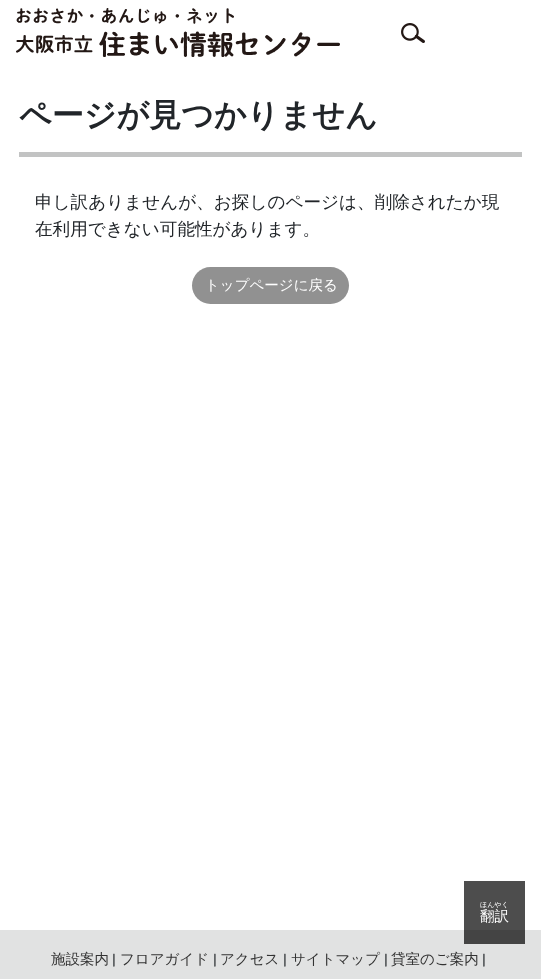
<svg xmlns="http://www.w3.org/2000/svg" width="541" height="979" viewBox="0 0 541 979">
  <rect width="100%" height="100%" fill="rgb(255,255,255)"/>
  <rect x="464" y="881" width="61" height="49" fill="rgb(77,77,77)"/>
  <image x="16" y="8" width="324" height="49" href="pic1.png"/>
  <image x="401" y="23" width="24" height="20" href="pic2.png"/>
  <rect x="19" y="152" width="503" height="5" fill="rgb(194,195,195)"/>
  <text x="19" y="126" font-family="WenQuanYi Zen Hei" font-size="32" font-weight="bold" fill="rgb(33,37,41)">ページが見つかりません</text>
  <g font-family="WenQuanYi Zen Hei" font-size="17.6" font-weight="500" fill="rgb(33,37,41)">
    <text>
      <tspan x="35" y="208">申し訳ありませんが、お探しのページは、削除されたか現</tspan>
      <tspan x="35" y="235">在利用できない可能性があります。</tspan>
    </text>
  </g>
  <rect x="192" y="267" width="157" height="37" rx="18.5" fill="rgb(145,145,145)"/>
  <text x="205" y="290" font-family="WenQuanYi Zen Hei" font-size="14.5" font-weight="500" fill="rgb(255,255,255)">トップページに戻る</text>
  <text x="480" y="907" font-family="WenQuanYi Zen Hei" font-size="7" font-weight="500" fill="rgb(255,255,255)">ほんやく</text>
  <text x="480" y="921" font-family="WenQuanYi Zen Hei" font-size="14.5" font-weight="500" fill="rgb(255,255,255)">翻訳</text>
  <rect x="0" y="930" width="541" height="49" fill="rgb(225,226,226)"/>
  <rect x="464" y="930" width="61" height="14" fill="rgb(68,68,68)"/>
  <text x="51" y="964" font-family="WenQuanYi Zen Hei" font-size="14.5" font-weight="500" fill="rgb(51,51,51)">施設案内</text>
  <text x="112" y="964" font-family="Nunito" font-size="14.5" font-weight="200" fill="rgb(33,37,41)">|</text>
  <text x="120" y="964" font-family="WenQuanYi Zen Hei" font-size="14.5" font-weight="500" fill="rgb(51,51,51)">フロアガイド</text>
  <text x="213" y="964" font-family="Nunito" font-size="14.5" font-weight="200" fill="rgb(33,37,41)">|</text>
  <text x="220" y="964" font-family="WenQuanYi Zen Hei" font-size="14.5" font-weight="500" fill="rgb(51,51,51)">アクセス</text>
  <text x="283" y="964" font-family="Nunito" font-size="14.5" font-weight="200" fill="rgb(33,37,41)">|</text>
  <text x="291" y="964" font-family="WenQuanYi Zen Hei" font-size="14.5" font-weight="500" fill="rgb(51,51,51)">サイトマップ</text>
  <text x="384" y="964" font-family="Nunito" font-size="14.5" font-weight="200" fill="rgb(33,37,41)">|</text>
  <text x="391" y="964" font-family="WenQuanYi Zen Hei" font-size="14.5" font-weight="500" fill="rgb(51,51,51)">貸室のご案内</text>
  <text x="482" y="964" font-family="Nunito" font-size="14.5" font-weight="200" fill="rgb(33,37,41)">|</text>
</svg>
